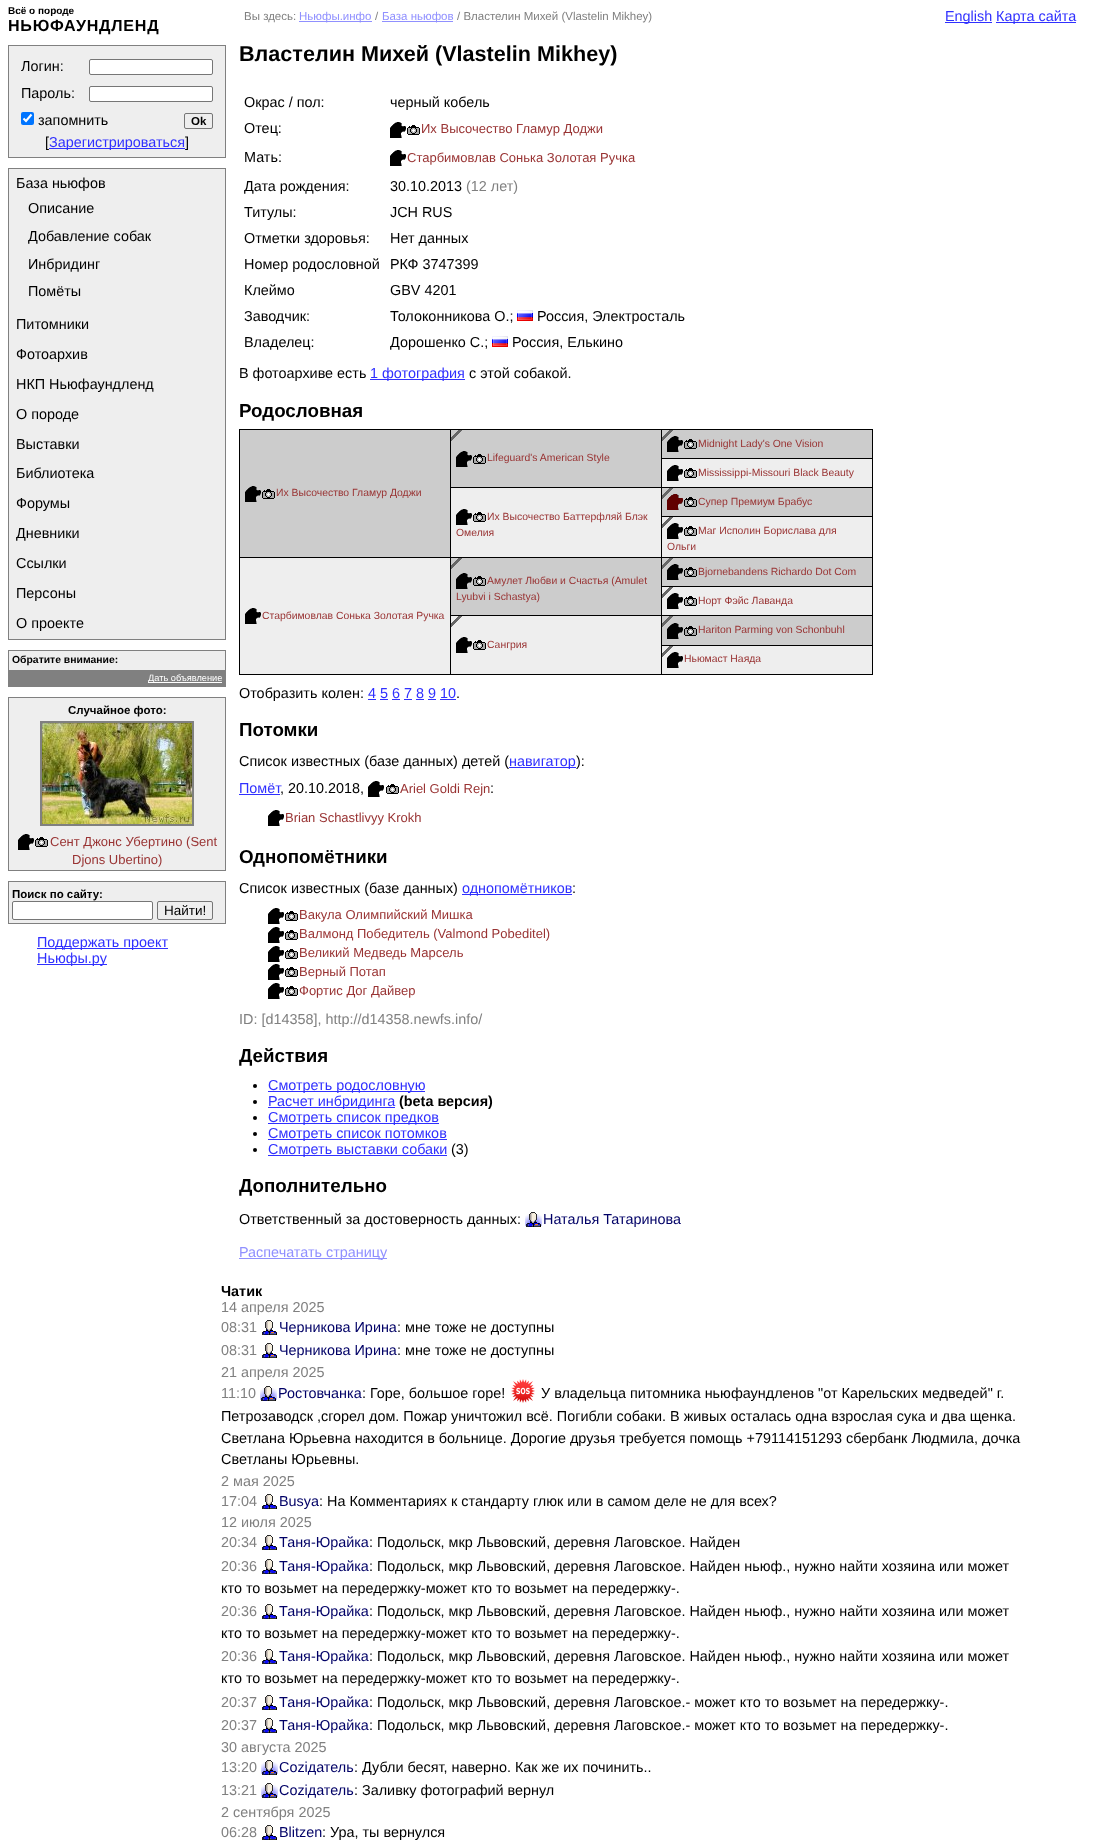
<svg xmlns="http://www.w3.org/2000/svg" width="1099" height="1842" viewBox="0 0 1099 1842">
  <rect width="100%" height="100%" fill="rgb(255,255,255)"/>
  <text x="8" y="14" font-family="Liberation Sans" font-size="10" font-weight="bold" fill="rgb(0,0,0)">Всё о породе</text>
  <text x="8" y="31" font-family="Liberation Sans" font-size="16.1" font-weight="bold" letter-spacing="0.75" fill="rgb(0,0,0)">НЬЮФАУНДЛЕНД</text>
  <rect x="8.5" y="45.5" width="217" height="112" fill="rgb(238,238,238)" stroke="rgb(128,128,128)"/>
  <text x="21" y="71" font-family="Liberation Sans" font-size="14.4" fill="rgb(0,0,0)">Логин:</text>
  <rect x="89.5" y="59.5" width="123" height="15" rx="1.5" fill="rgb(255,255,255)" stroke="rgb(118,118,118)"/>
  <text x="21" y="98" font-family="Liberation Sans" font-size="14.4" fill="rgb(0,0,0)">Пароль:</text>
  <rect x="89.5" y="86.5" width="123" height="15" rx="1.5" fill="rgb(255,255,255)" stroke="rgb(118,118,118)"/>
  <rect x="21" y="112" width="13" height="13" rx="2" fill="rgb(0,117,255)"/>
  <path d="M23.5 118.5L26 121L31.5 114.5" fill="none" stroke="rgb(255,255,255)" stroke-width="2.1"/>
  <text x="38" y="125" font-family="Liberation Sans" font-size="14.4" fill="rgb(0,0,0)">запомнить</text>
  <rect x="184.5" y="113.5" width="28" height="15" rx="1.5" fill="none" stroke="rgb(118,118,118)"/>
  <text x="191" y="125" font-family="Liberation Sans" font-size="11.5" font-weight="bold" fill="rgb(0,0,0)">Ok</text>
  <text x="45" y="147" font-family="Liberation Sans" font-size="14.4" fill="rgb(0,0,0)">[</text>
  <rect x="49" y="148" width="136" height="1" fill="rgb(48,48,255)"/>
  <text x="49" y="147" font-family="Liberation Sans" font-size="14.4" fill="rgb(48,48,255)">Зарегистрироваться</text>
  <text x="185" y="147" font-family="Liberation Sans" font-size="14.4" fill="rgb(0,0,0)">]</text>
  <rect x="8.5" y="168.5" width="217" height="471" fill="rgb(238,238,238)" stroke="rgb(128,128,128)"/>
  <g font-family="Liberation Sans" font-size="14.4" fill="rgb(0,0,0)">
    <text x="16" y="188">База ньюфов</text>
    <text>
      <tspan x="28" y="213">Описание</tspan>
      <tspan x="28" y="241">Добавление собак</tspan>
      <tspan x="28" y="269">Инбридинг</tspan>
      <tspan x="28" y="296">Помёты</tspan>
    </text>
    <text x="16" y="329">Питомники</text>
    <text x="16" y="359">Фотоархив</text>
    <text x="16" y="389">НКП Ньюфаундленд</text>
    <text x="16" y="419">О породе</text>
    <text x="16" y="449">Выставки</text>
    <text x="16" y="478">Библиотека</text>
    <text x="16" y="508">Форумы</text>
    <text x="16" y="538">Дневники</text>
    <text x="16" y="568">Ссылки</text>
    <text x="16" y="598">Персоны</text>
    <text x="16" y="628">О проекте</text>
  </g>
  <rect x="9" y="651" width="216" height="19" fill="rgb(238,238,238)"/>
  <rect x="8.5" y="650.5" width="217" height="36" fill="none" stroke="rgb(128,128,128)"/>
  <text x="12" y="663" font-family="Liberation Sans" font-size="10.4" font-weight="bold" fill="rgb(0,0,0)">Обратите внимание:</text>
  <rect x="9" y="670" width="216" height="16" fill="rgb(128,128,128)"/>
  <rect x="148" y="682" width="74" height="1" fill="rgb(255,255,255)"/>
  <text x="148" y="681" font-family="Liberation Sans" font-size="9.25" fill="rgb(255,255,255)">Дать объявление</text>
  <rect x="8.5" y="697.5" width="217" height="173" fill="rgb(238,238,238)" stroke="rgb(128,128,128)"/>
  <text x="68" y="714" font-family="Liberation Sans" font-size="11.5" font-weight="bold" fill="rgb(0,0,0)">Случайное фото:</text>
  <rect x="41" y="722" width="152" height="103" fill="none" stroke="rgb(128,128,128)" stroke-width="2"/>
  <image x="42" y="723" width="150" height="101" href="pic1.png"/>
  <image x="18" y="834" width="16" height="16" href="pic2.png"/>
  <image x="35" y="837" width="13" height="10" href="pic3.png"/>
  <g font-family="Liberation Sans" font-size="13" fill="rgb(153,51,51)">
    <text x="50" y="846">Сент Джонс Убертино (Sent</text>
    <text x="72" y="864">Djons Ubertino)</text>
  </g>
  <rect x="8.5" y="881.5" width="217" height="42" fill="rgb(238,238,238)" stroke="rgb(128,128,128)"/>
  <text x="12" y="898" font-family="Liberation Sans" font-size="11.5" font-weight="bold" fill="rgb(0,0,0)">Поиск по сайту:</text>
  <rect x="12.5" y="901.5" width="140" height="18" rx="1.5" fill="rgb(255,255,255)" stroke="rgb(118,118,118)"/>
  <rect x="157.5" y="901.5" width="55" height="18" rx="1.5" fill="none" stroke="rgb(118,118,118)"/>
  <text x="164" y="915" font-family="Liberation Sans" font-size="13.5" fill="rgb(0,0,0)">Найти!</text>
  <rect x="37" y="948" width="131" height="1" fill="rgb(48,48,255)"/>
  <text x="37" y="947" font-family="Liberation Sans" font-size="14.4" fill="rgb(48,48,255)">Поддержать проект</text>
  <rect x="37" y="964" width="70" height="1" fill="rgb(48,48,255)"/>
  <text x="37" y="963" font-family="Liberation Sans" font-size="14.4" fill="rgb(48,48,255)">Ньюфы.ру</text>
  <text x="244" y="20" font-family="Liberation Sans" font-size="11.5" fill="rgb(128,128,128)">Вы здесь:</text>
  <rect x="299" y="21" width="73" height="1" fill="rgb(144,144,255)"/>
  <text x="299" y="20" font-family="Liberation Sans" font-size="11.5" fill="rgb(144,144,255)">Ньюфы.инфо</text>
  <text x="375" y="20" font-family="Liberation Sans" font-size="11.5" fill="rgb(128,128,128)">/</text>
  <rect x="382" y="21" width="71" height="1" fill="rgb(144,144,255)"/>
  <text x="382" y="20" font-family="Liberation Sans" font-size="11.5" fill="rgb(144,144,255)">База ньюфов</text>
  <text x="457" y="20" font-family="Liberation Sans" font-size="11.5" fill="rgb(128,128,128)">/ Властелин Михей (Vlastelin Mikhey)</text>
  <rect x="945" y="22" width="47" height="1" fill="rgb(48,48,255)"/>
  <text x="945" y="21" font-family="Liberation Sans" font-size="14.4" fill="rgb(48,48,255)">English</text>
  <rect x="996" y="22" width="80" height="1" fill="rgb(48,48,255)"/>
  <text x="996" y="21" font-family="Liberation Sans" font-size="14.4" fill="rgb(48,48,255)">Карта сайта</text>
  <text x="239" y="61" font-family="Liberation Sans" font-size="21.6" font-weight="bold" fill="rgb(0,0,0)">Властелин Михей (Vlastelin Mikhey)</text>
  <g font-family="Liberation Sans" font-size="14.4" fill="rgb(0,0,0)">
    <text x="244" y="107">Окрас / пол:</text>
    <text x="390" y="107">черный кобель</text>
    <text x="244" y="133">Отец:</text>
  </g>
  <image x="390" y="122" width="16" height="16" href="pic4.png"/>
  <image x="407" y="125" width="13" height="10" href="pic5.png"/>
  <text x="421" y="133" font-family="Liberation Sans" font-size="13" fill="rgb(153,51,51)">Их Высочество Гламур Доджи</text>
  <text x="244" y="162" font-family="Liberation Sans" font-size="14.4" fill="rgb(0,0,0)">Мать:</text>
  <image x="390" y="150" width="16" height="16" href="pic4.png"/>
  <text x="407" y="162" font-family="Liberation Sans" font-size="13" fill="rgb(153,51,51)">Старбимовлав Сонька Золотая Ручка</text>
  <g font-family="Liberation Sans" font-size="14.4" fill="rgb(0,0,0)">
    <text x="244" y="191">Дата рождения:</text>
    <text x="390" y="191">30.10.2013</text>
  </g>
  <text x="466" y="191" font-family="Liberation Sans" font-size="14.4" fill="rgb(128,128,128)">(12 лет)</text>
  <g font-family="Liberation Sans" font-size="14.4" fill="rgb(0,0,0)">
    <text x="244" y="217">Титулы:</text>
    <text x="390" y="217">JCH RUS</text>
    <text x="244" y="243">Отметки здоровья:</text>
    <text x="390" y="243">Нет данных</text>
    <text x="244" y="269">Номер родословной</text>
    <text x="390" y="269">РКФ 3747399</text>
    <text x="244" y="295">Клеймо</text>
    <text x="390" y="295">GBV 4201</text>
    <text x="244" y="321">Заводчик:</text>
    <text x="390" y="321">Толоконникова О.;</text>
  </g>
  <image x="517" y="310" width="16" height="11" href="pic6.png"/>
  <g font-family="Liberation Sans" font-size="14.4" fill="rgb(0,0,0)">
    <text x="537" y="321">Россия, Электросталь</text>
    <text x="244" y="347">Владелец:</text>
    <text x="390" y="347">Дорошенко С.;</text>
  </g>
  <image x="492" y="336" width="16" height="11" href="pic6.png"/>
  <g font-family="Liberation Sans" font-size="14.4" fill="rgb(0,0,0)">
    <text x="512" y="347">Россия, Елькино</text>
    <text x="239" y="378">В фотоархиве есть</text>
  </g>
  <rect x="370" y="379" width="95" height="1" fill="rgb(48,48,255)"/>
  <text x="370" y="378" font-family="Liberation Sans" font-size="14.4" fill="rgb(48,48,255)">1 фотография</text>
  <text x="469" y="378" font-family="Liberation Sans" font-size="14.4" fill="rgb(0,0,0)">с этой собакой.</text>
  <text x="239" y="417" font-family="Liberation Sans" font-size="18.75" font-weight="bold" fill="rgb(0,0,0)">Родословная</text>
  <rect x="239" y="429" width="634" height="1" fill="rgb(0,0,0)"/>
  <rect x="239" y="429" width="1" height="246" fill="rgb(0,0,0)"/>
  <rect x="662" y="430" width="210" height="28" fill="rgb(204,204,204)"/>
  <image x="662" y="430" width="11" height="11" href="pic7.png"/>
  <rect x="872" y="429" width="1" height="246" fill="rgb(0,0,0)"/>
  <rect x="661" y="458" width="212" height="1" fill="rgb(0,0,0)"/>
  <image x="667" y="436" width="16" height="16" href="pic8.png"/>
  <image x="684" y="439" width="13" height="10" href="pic9.png"/>
  <text x="698" y="447" font-family="Liberation Sans" font-size="10.4" fill="rgb(153,51,51)">Midnight Lady's One Vision</text>
  <rect x="451" y="430" width="210" height="57" fill="rgb(204,204,204)"/>
  <image x="451" y="430" width="11" height="11" href="pic7.png"/>
  <rect x="661" y="516" width="212" height="1" fill="rgb(0,0,0)"/>
  <rect x="661" y="586" width="212" height="1" fill="rgb(0,0,0)"/>
  <rect x="661" y="645" width="212" height="1" fill="rgb(0,0,0)"/>
  <rect x="661" y="674" width="212" height="1" fill="rgb(0,0,0)"/>
  <rect x="661" y="615" width="1" height="60" fill="rgb(0,0,0)"/>
  <rect x="661" y="615" width="212" height="1" fill="rgb(0,0,0)"/>
  <rect x="661" y="557" width="1" height="59" fill="rgb(0,0,0)"/>
  <rect x="661" y="557" width="212" height="1" fill="rgb(0,0,0)"/>
  <rect x="661" y="487" width="1" height="71" fill="rgb(0,0,0)"/>
  <rect x="661" y="487" width="212" height="1" fill="rgb(0,0,0)"/>
  <rect x="661" y="429" width="1" height="59" fill="rgb(0,0,0)"/>
  <rect x="450" y="487" width="212" height="1" fill="rgb(0,0,0)"/>
  <image x="456" y="451" width="16" height="16" href="pic8.png"/>
  <image x="473" y="454" width="13" height="10" href="pic9.png"/>
  <text x="487" y="461" font-family="Liberation Sans" font-size="10.4" fill="rgb(153,51,51)">Lifeguard's American Style</text>
  <rect x="240" y="430" width="210" height="127" fill="rgb(204,204,204)"/>
  <rect x="450" y="615" width="212" height="1" fill="rgb(0,0,0)"/>
  <rect x="450" y="674" width="212" height="1" fill="rgb(0,0,0)"/>
  <rect x="450" y="557" width="1" height="118" fill="rgb(0,0,0)"/>
  <rect x="450" y="557" width="212" height="1" fill="rgb(0,0,0)"/>
  <rect x="450" y="429" width="1" height="129" fill="rgb(0,0,0)"/>
  <rect x="239" y="557" width="212" height="1" fill="rgb(0,0,0)"/>
  <image x="245" y="486" width="16" height="16" href="pic8.png"/>
  <image x="262" y="489" width="13" height="10" href="pic9.png"/>
  <text x="276" y="496" font-family="Liberation Sans" font-size="10.4" fill="rgb(153,51,51)">Их Высочество Гламур Доджи</text>
  <rect x="662" y="459" width="210" height="28" fill="rgb(238,238,238)"/>
  <image x="667" y="465" width="16" height="16" href="pic2.png"/>
  <image x="684" y="468" width="13" height="10" href="pic3.png"/>
  <text x="698" y="476" font-family="Liberation Sans" font-size="10.4" fill="rgb(153,51,51)">Mississippi-Missouri Black Beauty</text>
  <rect x="662" y="488" width="210" height="28" fill="rgb(204,204,204)"/>
  <image x="662" y="488" width="11" height="11" href="pic7.png"/>
  <image x="667" y="494" width="16" height="16" href="pic10.png"/>
  <image x="684" y="497" width="13" height="10" href="pic9.png"/>
  <text x="698" y="505" font-family="Liberation Sans" font-size="10.4" fill="rgb(153,51,51)">Супер Премиум Брабус</text>
  <rect x="451" y="488" width="210" height="69" fill="rgb(238,238,238)"/>
  <image x="456" y="509" width="16" height="16" href="pic2.png"/>
  <image x="473" y="512" width="13" height="10" href="pic3.png"/>
  <g font-family="Liberation Sans" font-size="10.4" fill="rgb(153,51,51)">
    <text x="487" y="520">Их Высочество Баттерфляй Блэк</text>
    <text x="456" y="536">Омелия</text>
  </g>
  <rect x="662" y="517" width="210" height="40" fill="rgb(238,238,238)"/>
  <image x="662" y="517" width="11" height="11" href="pic11.png"/>
  <image x="667" y="523" width="16" height="16" href="pic2.png"/>
  <image x="684" y="526" width="13" height="10" href="pic3.png"/>
  <g font-family="Liberation Sans" font-size="10.4" fill="rgb(153,51,51)">
    <text x="698" y="534">Маг Исполин Борислава для</text>
    <text x="667" y="550">Ольги</text>
  </g>
  <rect x="662" y="558" width="210" height="28" fill="rgb(204,204,204)"/>
  <image x="662" y="558" width="11" height="11" href="pic7.png"/>
  <image x="667" y="564" width="16" height="16" href="pic8.png"/>
  <image x="684" y="567" width="13" height="10" href="pic9.png"/>
  <text x="698" y="575" font-family="Liberation Sans" font-size="10.4" fill="rgb(153,51,51)">Bjornebandens Richardo Dot Com</text>
  <rect x="451" y="558" width="210" height="57" fill="rgb(204,204,204)"/>
  <image x="451" y="558" width="11" height="11" href="pic7.png"/>
  <image x="456" y="573" width="16" height="16" href="pic8.png"/>
  <image x="473" y="576" width="13" height="10" href="pic9.png"/>
  <g font-family="Liberation Sans" font-size="10.4" fill="rgb(153,51,51)">
    <text x="487" y="584">Амулет Любви и Счастья (Amulet</text>
    <text x="456" y="600">Lyubvi i Schastya)</text>
  </g>
  <rect x="240" y="558" width="210" height="116" fill="rgb(238,238,238)"/>
  <rect x="239" y="674" width="212" height="1" fill="rgb(0,0,0)"/>
  <image x="245" y="608" width="16" height="16" href="pic2.png"/>
  <text x="262" y="619" font-family="Liberation Sans" font-size="10.4" fill="rgb(153,51,51)">Старбимовлав Сонька Золотая Ручка</text>
  <rect x="662" y="587" width="210" height="28" fill="rgb(238,238,238)"/>
  <image x="662" y="587" width="11" height="11" href="pic11.png"/>
  <image x="667" y="593" width="16" height="16" href="pic2.png"/>
  <image x="684" y="596" width="13" height="10" href="pic3.png"/>
  <text x="698" y="604" font-family="Liberation Sans" font-size="10.4" fill="rgb(153,51,51)">Норт Фэйс Лаванда</text>
  <rect x="662" y="616" width="210" height="29" fill="rgb(204,204,204)"/>
  <image x="662" y="616" width="11" height="11" href="pic7.png"/>
  <image x="667" y="623" width="16" height="16" href="pic8.png"/>
  <image x="684" y="626" width="13" height="10" href="pic9.png"/>
  <text x="698" y="633" font-family="Liberation Sans" font-size="10.4" fill="rgb(153,51,51)">Hariton Parming von Schonbuhl</text>
  <rect x="451" y="616" width="210" height="58" fill="rgb(238,238,238)"/>
  <image x="451" y="616" width="11" height="11" href="pic11.png"/>
  <image x="456" y="637" width="16" height="16" href="pic2.png"/>
  <image x="473" y="640" width="13" height="10" href="pic3.png"/>
  <text x="487" y="648" font-family="Liberation Sans" font-size="10.4" fill="rgb(153,51,51)">Сангрия</text>
  <rect x="662" y="646" width="210" height="28" fill="rgb(238,238,238)"/>
  <image x="662" y="646" width="11" height="11" href="pic11.png"/>
  <image x="667" y="652" width="16" height="16" href="pic2.png"/>
  <text x="684" y="662" font-family="Liberation Sans" font-size="10.4" fill="rgb(153,51,51)">Ньюмаст Наяда</text>
  <text x="239" y="698" font-family="Liberation Sans" font-size="14.4" fill="rgb(0,0,0)">Отобразить колен:</text>
  <text x="368" y="698" font-family="Liberation Sans" font-size="14.4" fill="rgb(48,48,255)">4 5 6 7 8 9 10</text>
  <rect x="368" y="699" width="8" height="1" fill="rgb(48,48,255)"/>
  <text x="456" y="698" font-family="Liberation Sans" font-size="14.4" fill="rgb(0,0,0)">.</text>
  <rect x="380" y="699" width="8" height="1" fill="rgb(48,48,255)"/>
  <rect x="392" y="699" width="8" height="1" fill="rgb(48,48,255)"/>
  <rect x="404" y="699" width="8" height="1" fill="rgb(48,48,255)"/>
  <rect x="416" y="699" width="8" height="1" fill="rgb(48,48,255)"/>
  <rect x="428" y="699" width="8" height="1" fill="rgb(48,48,255)"/>
  <rect x="440" y="699" width="16" height="1" fill="rgb(48,48,255)"/>
  <text x="239" y="736" font-family="Liberation Sans" font-size="18.75" font-weight="bold" fill="rgb(0,0,0)">Потомки</text>
  <text x="239" y="766" font-family="Liberation Sans" font-size="14.4" fill="rgb(0,0,0)">Список известных (базе данных) детей (</text>
  <rect x="509" y="767" width="67" height="1" fill="rgb(48,48,255)"/>
  <text x="509" y="766" font-family="Liberation Sans" font-size="14.4" fill="rgb(48,48,255)">навигатор</text>
  <text x="576" y="766" font-family="Liberation Sans" font-size="14.4" fill="rgb(0,0,0)">):</text>
  <text x="239" y="793" font-family="Liberation Sans" font-size="14.4" fill="rgb(48,48,255)">Помёт</text>
  <rect x="239" y="794" width="41" height="1" fill="rgb(48,48,255)"/>
  <text x="280" y="793" font-family="Liberation Sans" font-size="14.4" fill="rgb(0,0,0)">, 20.10.2018,</text>
  <image x="368" y="781" width="16" height="16" href="pic4.png"/>
  <image x="386" y="784" width="13" height="10" href="pic5.png"/>
  <text x="400" y="793" font-family="Liberation Sans" font-size="13" fill="rgb(153,51,51)">Ariel Goldi Rejn</text>
  <text x="490" y="793" font-family="Liberation Sans" font-size="14.4" fill="rgb(0,0,0)">:</text>
  <image x="268" y="810" width="16" height="16" href="pic4.png"/>
  <text x="285" y="822" font-family="Liberation Sans" font-size="13" fill="rgb(153,51,51)">Brian Schastlivyy Krokh</text>
  <text x="239" y="863" font-family="Liberation Sans" font-size="18.75" font-weight="bold" fill="rgb(0,0,0)">Однопомётники</text>
  <text x="239" y="893" font-family="Liberation Sans" font-size="14.4" fill="rgb(0,0,0)">Список известных (базе данных)</text>
  <rect x="462" y="894" width="110" height="1" fill="rgb(48,48,255)"/>
  <text x="462" y="893" font-family="Liberation Sans" font-size="14.4" fill="rgb(48,48,255)">однопомётников</text>
  <text x="572" y="893" font-family="Liberation Sans" font-size="14.4" fill="rgb(0,0,0)">:</text>
  <image x="268" y="908" width="16" height="16" href="pic4.png"/>
  <image x="285" y="911" width="13" height="10" href="pic5.png"/>
  <text x="299" y="919" font-family="Liberation Sans" font-size="13" fill="rgb(153,51,51)">Вакула Олимпийский Мишка</text>
  <image x="268" y="927" width="16" height="16" href="pic4.png"/>
  <image x="285" y="930" width="13" height="10" href="pic5.png"/>
  <text x="299" y="938" font-family="Liberation Sans" font-size="13" fill="rgb(153,51,51)">Валмонд Победитель (Valmond Pobeditel)</text>
  <image x="268" y="946" width="16" height="16" href="pic4.png"/>
  <image x="285" y="949" width="13" height="10" href="pic5.png"/>
  <text x="299" y="957" font-family="Liberation Sans" font-size="13" fill="rgb(153,51,51)">Великий Медведь Марсель</text>
  <image x="268" y="964" width="16" height="16" href="pic4.png"/>
  <image x="285" y="967" width="13" height="10" href="pic5.png"/>
  <text x="299" y="976" font-family="Liberation Sans" font-size="13" fill="rgb(153,51,51)">Верный Потап</text>
  <image x="268" y="983" width="16" height="16" href="pic4.png"/>
  <image x="285" y="986" width="13" height="10" href="pic5.png"/>
  <text x="299" y="995" font-family="Liberation Sans" font-size="13" fill="rgb(153,51,51)">Фортис Дог Дайвер</text>
  <text x="239" y="1024" font-family="Liberation Sans" font-size="14.4" fill="rgb(128,128,128)">ID: [d14358], http://d14358.newfs.info/</text>
  <text x="239" y="1062" font-family="Liberation Sans" font-size="18.75" font-weight="bold" fill="rgb(0,0,0)">Действия</text>
  <circle cx="255" cy="1086" r="2" fill="rgb(0,0,0)"/>
  <rect x="268" y="1091" width="157" height="1" fill="rgb(48,48,255)"/>
  <text x="268" y="1090" font-family="Liberation Sans" font-size="14.4" fill="rgb(48,48,255)">Смотреть родословную</text>
  <circle cx="255" cy="1102" r="2" fill="rgb(0,0,0)"/>
  <rect x="268" y="1107" width="127" height="1" fill="rgb(48,48,255)"/>
  <text x="268" y="1106" font-family="Liberation Sans" font-size="14.4" fill="rgb(48,48,255)">Расчет инбридинга</text>
  <text x="399" y="1106" font-family="Liberation Sans" font-size="14.4" font-weight="bold" fill="rgb(0,0,0)">(beta версия)</text>
  <circle cx="255" cy="1118" r="2" fill="rgb(0,0,0)"/>
  <rect x="268" y="1123" width="171" height="1" fill="rgb(48,48,255)"/>
  <text x="268" y="1122" font-family="Liberation Sans" font-size="14.4" fill="rgb(48,48,255)">Смотреть список предков</text>
  <circle cx="255" cy="1134" r="2" fill="rgb(0,0,0)"/>
  <rect x="268" y="1139" width="179" height="1" fill="rgb(48,48,255)"/>
  <text x="268" y="1138" font-family="Liberation Sans" font-size="14.4" fill="rgb(48,48,255)">Смотреть список потомков</text>
  <circle cx="255" cy="1150" r="2" fill="rgb(0,0,0)"/>
  <rect x="268" y="1155" width="179" height="1" fill="rgb(48,48,255)"/>
  <text x="268" y="1154" font-family="Liberation Sans" font-size="14.4" fill="rgb(48,48,255)">Смотреть выставки собаки</text>
  <text x="451" y="1154" font-family="Liberation Sans" font-size="14.4" fill="rgb(0,0,0)">(3)</text>
  <text x="239" y="1192" font-family="Liberation Sans" font-size="18.75" font-weight="bold" fill="rgb(0,0,0)">Дополнительно</text>
  <text x="239" y="1224" font-family="Liberation Sans" font-size="14.4" fill="rgb(0,0,0)">Ответственный за достоверность данных:</text>
  <image x="525" y="1214" width="17" height="12" href="pic13.png"/>
  <image x="526" y="1212" width="15" height="15" href="pic12.png"/>
  <text x="543" y="1224" font-family="Liberation Sans" font-size="14.4" fill="rgb(0,0,102)">Наталья Татаринова</text>
  <rect x="239" y="1258" width="148" height="1" fill="rgb(144,144,255)"/>
  <text x="239" y="1257" font-family="Liberation Sans" font-size="14.4" fill="rgb(144,144,255)">Распечатать страницу</text>
  <text x="221" y="1296" font-family="Liberation Sans" font-size="14.4" font-weight="bold" fill="rgb(0,0,0)">Чатик</text>
  <g font-family="Liberation Sans" font-size="14.4" fill="rgb(128,128,128)">
    <text>
      <tspan x="221" y="1312">14 апреля 2025</tspan>
      <tspan x="221" y="1332">08:31</tspan>
    </text>
  </g>
  <image x="262" y="1320" width="15" height="15" href="pic14.png"/>
  <text x="279" y="1332" font-family="Liberation Sans" font-size="14.4" fill="rgb(0,0,102)">Черникова Ирина</text>
  <text x="397" y="1332" font-family="Liberation Sans" font-size="14.4" fill="rgb(0,0,0)">: мне тоже не доступны</text>
  <text x="221" y="1355" font-family="Liberation Sans" font-size="14.4" fill="rgb(128,128,128)">08:31</text>
  <image x="262" y="1343" width="15" height="15" href="pic14.png"/>
  <text x="279" y="1355" font-family="Liberation Sans" font-size="14.4" fill="rgb(0,0,102)">Черникова Ирина</text>
  <text x="397" y="1355" font-family="Liberation Sans" font-size="14.4" fill="rgb(0,0,0)">: мне тоже не доступны</text>
  <g font-family="Liberation Sans" font-size="14.4" fill="rgb(128,128,128)">
    <text>
      <tspan x="221" y="1377">21 апреля 2025</tspan>
      <tspan x="221" y="1398">11:10</tspan>
    </text>
  </g>
  <image x="260" y="1388" width="17" height="12" href="pic13.png"/>
  <image x="261" y="1386" width="15" height="15" href="pic12.png"/>
  <text x="362" y="1398" font-family="Liberation Sans" font-size="14.4" fill="rgb(0,0,0)">: Горе, большое горе!</text>
  <image x="511" y="1379" width="24" height="24" href="pic15.png"/>
  <text x="541" y="1398" font-family="Liberation Sans" font-size="14.4" fill="rgb(0,0,0)">У владельца питомника ньюфаундленов "от Карельских медведей" г.</text>
  <text x="278" y="1398" font-family="Liberation Sans" font-size="14.4" fill="rgb(0,0,102)">Ростовчанка</text>
  <g font-family="Liberation Sans" font-size="14.4" fill="rgb(0,0,0)">
    <text>
      <tspan x="221" y="1421">Петрозаводск ,сгорел дом. Пожар уничтожил всё. Погибли собаки. В живых осталась одна взрослая сука и два щенка.</tspan>
      <tspan x="221" y="1443">Светлана Юрьевна находится в больнице. Дорогие друзья требуется помощь +79114151293 сбербанк Людмила, дочка</tspan>
      <tspan x="221" y="1464">Светланы Юрьевны.</tspan>
    </text>
  </g>
  <g font-family="Liberation Sans" font-size="14.4" fill="rgb(128,128,128)">
    <text>
      <tspan x="221" y="1486">2 мая 2025</tspan>
      <tspan x="221" y="1506">17:04</tspan>
    </text>
  </g>
  <image x="262" y="1494" width="15" height="15" href="pic16.png"/>
  <text x="279" y="1506" font-family="Liberation Sans" font-size="14.4" fill="rgb(0,0,102)">Busya</text>
  <text x="319" y="1506" font-family="Liberation Sans" font-size="14.4" fill="rgb(0,0,0)">: На Комментариях к стандарту глюк или в самом деле не для всех?</text>
  <g font-family="Liberation Sans" font-size="14.4" fill="rgb(128,128,128)">
    <text>
      <tspan x="221" y="1527">12 июля 2025</tspan>
      <tspan x="221" y="1547">20:34</tspan>
    </text>
  </g>
  <image x="262" y="1535" width="15" height="15" href="pic16.png"/>
  <text x="279" y="1547" font-family="Liberation Sans" font-size="14.4" fill="rgb(0,0,102)">Таня-Юрайка</text>
  <text x="369" y="1547" font-family="Liberation Sans" font-size="14.4" fill="rgb(0,0,0)">: Подольск, мкр Львовский, деревня Лаговское. Найден</text>
  <text x="221" y="1571" font-family="Liberation Sans" font-size="14.4" fill="rgb(128,128,128)">20:36</text>
  <image x="262" y="1559" width="15" height="15" href="pic16.png"/>
  <text x="279" y="1571" font-family="Liberation Sans" font-size="14.4" fill="rgb(0,0,102)">Таня-Юрайка</text>
  <g font-family="Liberation Sans" font-size="14.4" fill="rgb(0,0,0)">
    <text x="369" y="1571">: Подольск, мкр Львовский, деревня Лаговское. Найден ньюф., нужно найти хозяина или может</text>
    <text x="221" y="1593">кто то возьмет на передержку-может кто то возьмет на передержку-.</text>
  </g>
  <text x="221" y="1616" font-family="Liberation Sans" font-size="14.4" fill="rgb(128,128,128)">20:36</text>
  <image x="262" y="1604" width="15" height="15" href="pic16.png"/>
  <text x="279" y="1616" font-family="Liberation Sans" font-size="14.4" fill="rgb(0,0,102)">Таня-Юрайка</text>
  <g font-family="Liberation Sans" font-size="14.4" fill="rgb(0,0,0)">
    <text x="369" y="1616">: Подольск, мкр Львовский, деревня Лаговское. Найден ньюф., нужно найти хозяина или может</text>
    <text x="221" y="1638">кто то возьмет на передержку-может кто то возьмет на передержку-.</text>
  </g>
  <text x="221" y="1661" font-family="Liberation Sans" font-size="14.4" fill="rgb(128,128,128)">20:36</text>
  <image x="262" y="1649" width="15" height="15" href="pic16.png"/>
  <text x="279" y="1661" font-family="Liberation Sans" font-size="14.4" fill="rgb(0,0,102)">Таня-Юрайка</text>
  <g font-family="Liberation Sans" font-size="14.4" fill="rgb(0,0,0)">
    <text x="369" y="1661">: Подольск, мкр Львовский, деревня Лаговское. Найден ньюф., нужно найти хозяина или может</text>
    <text x="221" y="1683">кто то возьмет на передержку-может кто то возьмет на передержку-.</text>
  </g>
  <text x="221" y="1707" font-family="Liberation Sans" font-size="14.4" fill="rgb(128,128,128)">20:37</text>
  <image x="262" y="1695" width="15" height="15" href="pic16.png"/>
  <text x="279" y="1707" font-family="Liberation Sans" font-size="14.4" fill="rgb(0,0,102)">Таня-Юрайка</text>
  <text x="369" y="1707" font-family="Liberation Sans" font-size="14.4" fill="rgb(0,0,0)">: Подольск, мкр Львовский, деревня Лаговское.- может кто то возьмет на передержку-.</text>
  <text x="221" y="1730" font-family="Liberation Sans" font-size="14.4" fill="rgb(128,128,128)">20:37</text>
  <image x="262" y="1718" width="15" height="15" href="pic16.png"/>
  <text x="279" y="1730" font-family="Liberation Sans" font-size="14.4" fill="rgb(0,0,102)">Таня-Юрайка</text>
  <text x="369" y="1730" font-family="Liberation Sans" font-size="14.4" fill="rgb(0,0,0)">: Подольск, мкр Львовский, деревня Лаговское.- может кто то возьмет на передержку-.</text>
  <g font-family="Liberation Sans" font-size="14.4" fill="rgb(128,128,128)">
    <text>
      <tspan x="221" y="1752">30 августа 2025</tspan>
      <tspan x="221" y="1772">13:20</tspan>
    </text>
  </g>
  <image x="261" y="1762" width="17" height="12" href="pic13.png"/>
  <image x="262" y="1760" width="15" height="15" href="pic12.png"/>
  <text x="279" y="1772" font-family="Liberation Sans" font-size="14.4" fill="rgb(0,0,102)">Соziдатель</text>
  <text x="354" y="1772" font-family="Liberation Sans" font-size="14.4" fill="rgb(0,0,0)">: Дубли бесят, наверно. Как же их починить..</text>
  <text x="221" y="1795" font-family="Liberation Sans" font-size="14.4" fill="rgb(128,128,128)">13:21</text>
  <image x="261" y="1785" width="17" height="12" href="pic13.png"/>
  <image x="262" y="1783" width="15" height="15" href="pic12.png"/>
  <text x="279" y="1795" font-family="Liberation Sans" font-size="14.4" fill="rgb(0,0,102)">Соziдатель</text>
  <text x="354" y="1795" font-family="Liberation Sans" font-size="14.4" fill="rgb(0,0,0)">: Заливку фотографий вернул</text>
  <g font-family="Liberation Sans" font-size="14.4" fill="rgb(128,128,128)">
    <text>
      <tspan x="221" y="1817">2 сентября 2025</tspan>
      <tspan x="221" y="1837">06:28</tspan>
    </text>
  </g>
  <image x="262" y="1825" width="15" height="15" href="pic16.png"/>
  <text x="279" y="1837" font-family="Liberation Sans" font-size="14.4" fill="rgb(0,0,102)">Blitzen</text>
  <text x="322" y="1837" font-family="Liberation Sans" font-size="14.4" fill="rgb(0,0,0)">: Ура, ты вернулся</text>
</svg>
